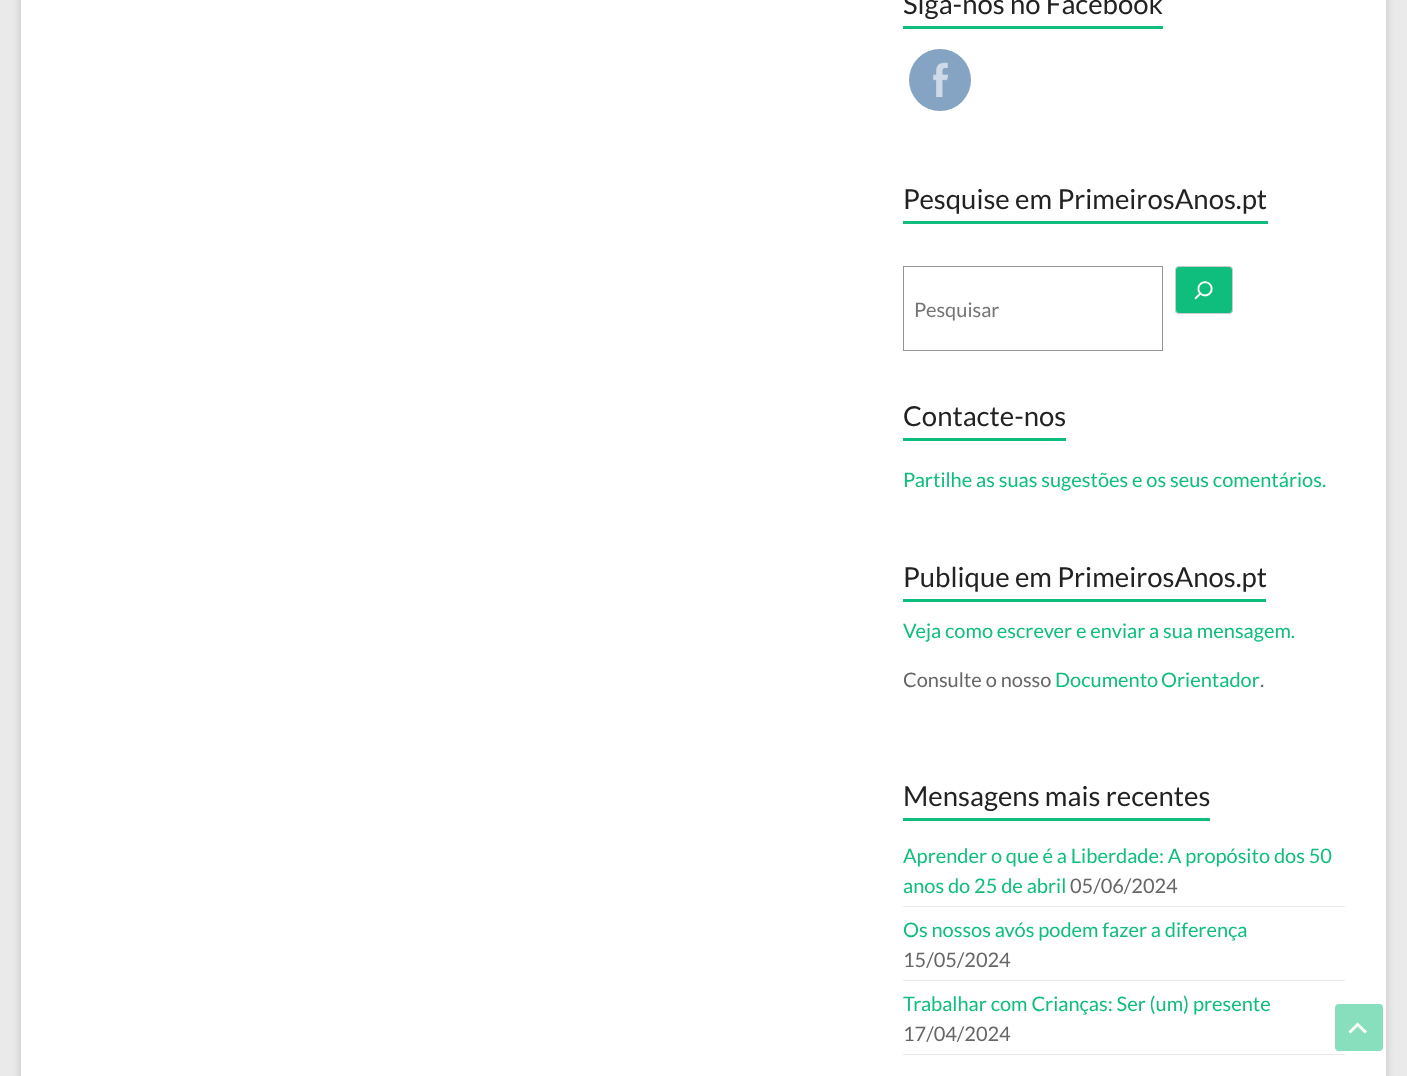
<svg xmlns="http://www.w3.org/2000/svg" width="1407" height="1076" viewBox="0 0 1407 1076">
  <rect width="100%" height="100%" fill="rgb(234,234,234)"/>
  <rect x="21" y="-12" width="1365" height="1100" fill="rgba(100,100,100,0.3)" filter="blur(4px)"/>
  <rect x="21" y="0" width="1365" height="1076" fill="rgb(255,255,255)"/>
  <text x="903" y="14" font-family="Lato" font-size="27.5" fill="rgb(34,34,34)">Siga-nos no Facebook</text>
  <rect x="903" y="26" width="260" height="3" fill="rgb(15,190,124)"/>
  <circle cx="940" cy="80" r="31" fill="rgb(133,163,194)"/>
  <image x="933" y="62" width="16" height="35" href="pic1.png"/>
  <text x="903" y="209" font-family="Lato" font-size="27.5" fill="rgb(34,34,34)">Pesquise em PrimeirosAnos.pt</text>
  <rect x="903" y="221" width="365" height="3" fill="rgb(15,190,124)"/>
  <rect x="903.5" y="266.5" width="259" height="84" fill="none" stroke="rgb(148,148,148)"/>
  <text x="914" y="317" font-family="Lato" font-size="20" fill="rgb(117,117,117)">Pesquisar</text>
  <rect x="1175.5" y="266.5" width="57" height="47" rx="3.5" fill="rgb(15,190,124)" stroke="rgb(204,204,204)"/>
  <image x="1194" y="281" width="19" height="19" href="pic2.png"/>
  <text x="903" y="426" font-family="Lato" font-size="27.5" fill="rgb(34,34,34)">Contacte-nos</text>
  <rect x="903" y="438" width="163" height="3" fill="rgb(15,190,124)"/>
  <text x="903" y="487" font-family="Lato" font-size="20" fill="rgb(15,190,124)">Partilhe as suas sugestões e os seus comentários.</text>
  <text x="903" y="587" font-family="Lato" font-size="27.5" fill="rgb(34,34,34)">Publique em PrimeirosAnos.pt</text>
  <rect x="903" y="599" width="363" height="3" fill="rgb(15,190,124)"/>
  <text x="903" y="638" font-family="Lato" font-size="20" fill="rgb(15,190,124)">Veja como escrever e enviar a sua mensagem.</text>
  <text x="903" y="687" font-family="Lato" font-size="20" fill="rgb(102,102,102)">Consulte o nosso</text>
  <text x="1055" y="687" word-spacing="-1" font-family="Lato" font-size="20" fill="rgb(15,190,124)">Documento Orientador</text>
  <text x="1260" y="687" font-family="Lato" font-size="20" fill="rgb(102,102,102)">.</text>
  <text x="903" y="806" font-family="Lato" font-size="27.5" fill="rgb(34,34,34)">Mensagens mais recentes</text>
  <rect x="903" y="818" width="307" height="3" fill="rgb(15,190,124)"/>
  <rect x="903" y="906" width="442" height="1" fill="rgb(234,234,234)"/>
  <g font-family="Lato" font-size="20" fill="rgb(15,190,124)">
    <text>
      <tspan x="903" y="863">Aprender o que é a Liberdade: A propósito dos 50</tspan>
      <tspan x="903" y="893">anos do 25 de abril</tspan>
    </text>
  </g>
  <text x="1070" y="893" font-family="Lato" font-size="20" fill="rgb(102,102,102)">05/06/2024</text>
  <rect x="903" y="980" width="442" height="1" fill="rgb(234,234,234)"/>
  <text x="903" y="937" font-family="Lato" font-size="20" fill="rgb(15,190,124)">Os nossos avós podem fazer a diferença</text>
  <text x="903" y="967" font-family="Lato" font-size="20" fill="rgb(102,102,102)">15/05/2024</text>
  <rect x="903" y="1054" width="442" height="1" fill="rgb(234,234,234)"/>
  <text x="903" y="1011" font-family="Lato" font-size="20" fill="rgb(15,190,124)">Trabalhar com Crianças: Ser (um) presente</text>
  <text x="903" y="1041" font-family="Lato" font-size="20" fill="rgb(102,102,102)">17/04/2024</text>
  <rect x="1335" y="1004" width="48" height="47" rx="4" fill="rgb(135,223,190)"/>
  <path d="M1365 1033.5L1357.5 1026.5L1350.5 1033.5L1348.5 1031.5L1357.5 1022.5L1367 1031.5Z" fill="rgb(255,255,255)"/>
</svg>
